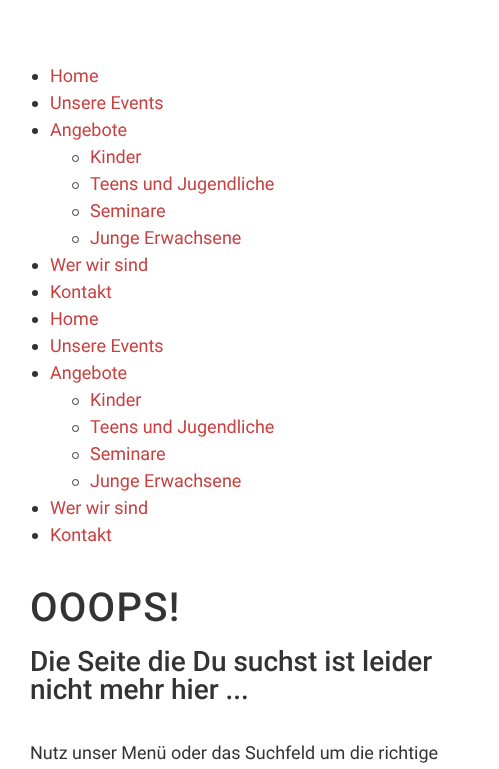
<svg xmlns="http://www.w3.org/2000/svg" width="499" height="769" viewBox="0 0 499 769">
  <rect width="100%" height="100%" fill="rgb(255,255,255)"/>
  <circle cx="35" cy="77" r="3" fill="rgb(51,51,51)"/>
  <text x="50" y="82" font-family="Roboto" font-size="18" fill="rgb(200,64,64)">Home</text>
  <circle cx="35" cy="104" r="3" fill="rgb(51,51,51)"/>
  <text x="50" y="109" font-family="Roboto" font-size="18" fill="rgb(200,64,64)">Unsere Events</text>
  <circle cx="35" cy="131" r="3" fill="rgb(51,51,51)"/>
  <text x="50" y="136" font-family="Roboto" font-size="18" fill="rgb(200,64,64)">Angebote</text>
  <circle cx="75.5" cy="158.5" r="3" fill="none" stroke="rgb(51,51,51)"/>
  <text x="90" y="163" font-family="Roboto" font-size="18" fill="rgb(200,64,64)">Kinder</text>
  <circle cx="75.5" cy="185.5" r="3" fill="none" stroke="rgb(51,51,51)"/>
  <text x="90" y="190" font-family="Roboto" font-size="18" fill="rgb(200,64,64)">Teens und Jugendliche</text>
  <circle cx="75.5" cy="212.5" r="3" fill="none" stroke="rgb(51,51,51)"/>
  <text x="90" y="217" font-family="Roboto" font-size="18" fill="rgb(200,64,64)">Seminare</text>
  <circle cx="75.5" cy="239.5" r="3" fill="none" stroke="rgb(51,51,51)"/>
  <text x="90" y="244" font-family="Roboto" font-size="18" fill="rgb(200,64,64)">Junge Erwachsene</text>
  <circle cx="35" cy="266" r="3" fill="rgb(51,51,51)"/>
  <text x="50" y="271" font-family="Roboto" font-size="18" fill="rgb(200,64,64)">Wer wir sind</text>
  <circle cx="35" cy="293" r="3" fill="rgb(51,51,51)"/>
  <text x="50" y="298" font-family="Roboto" font-size="18" fill="rgb(200,64,64)">Kontakt</text>
  <circle cx="35" cy="320" r="3" fill="rgb(51,51,51)"/>
  <text x="50" y="325" font-family="Roboto" font-size="18" fill="rgb(200,64,64)">Home</text>
  <circle cx="35" cy="347" r="3" fill="rgb(51,51,51)"/>
  <text x="50" y="352" font-family="Roboto" font-size="18" fill="rgb(200,64,64)">Unsere Events</text>
  <circle cx="35" cy="374" r="3" fill="rgb(51,51,51)"/>
  <text x="50" y="379" font-family="Roboto" font-size="18" fill="rgb(200,64,64)">Angebote</text>
  <circle cx="75.5" cy="401.5" r="3" fill="none" stroke="rgb(51,51,51)"/>
  <text x="90" y="406" font-family="Roboto" font-size="18" fill="rgb(200,64,64)">Kinder</text>
  <circle cx="75.5" cy="428.5" r="3" fill="none" stroke="rgb(51,51,51)"/>
  <text x="90" y="433" font-family="Roboto" font-size="18" fill="rgb(200,64,64)">Teens und Jugendliche</text>
  <circle cx="75.5" cy="455.5" r="3" fill="none" stroke="rgb(51,51,51)"/>
  <text x="90" y="460" font-family="Roboto" font-size="18" fill="rgb(200,64,64)">Seminare</text>
  <circle cx="75.5" cy="482.5" r="3" fill="none" stroke="rgb(51,51,51)"/>
  <text x="90" y="487" font-family="Roboto" font-size="18" fill="rgb(200,64,64)">Junge Erwachsene</text>
  <circle cx="35" cy="509" r="3" fill="rgb(51,51,51)"/>
  <text x="50" y="514" font-family="Roboto" font-size="18" fill="rgb(200,64,64)">Wer wir sind</text>
  <circle cx="35" cy="536" r="3" fill="rgb(51,51,51)"/>
  <text x="50" y="541" font-family="Roboto" font-size="18" fill="rgb(200,64,64)">Kontakt</text>
  <text x="30" y="621" font-family="Roboto" font-size="40" font-weight="500" letter-spacing="1.25" fill="rgb(51,51,51)">OOOPS!</text>
  <g font-family="Roboto" font-size="28" font-weight="500" fill="rgb(51,51,51)">
    <text>
      <tspan x="30" y="671">Die Seite die Du suchst ist leider</tspan>
      <tspan x="30" y="699">nicht mehr hier ...</tspan>
    </text>
  </g>
  <text x="30" y="759" font-family="Roboto" font-size="18" fill="rgb(51,51,51)">Nutz unser Menü oder das Suchfeld um die richtige</text>
</svg>
